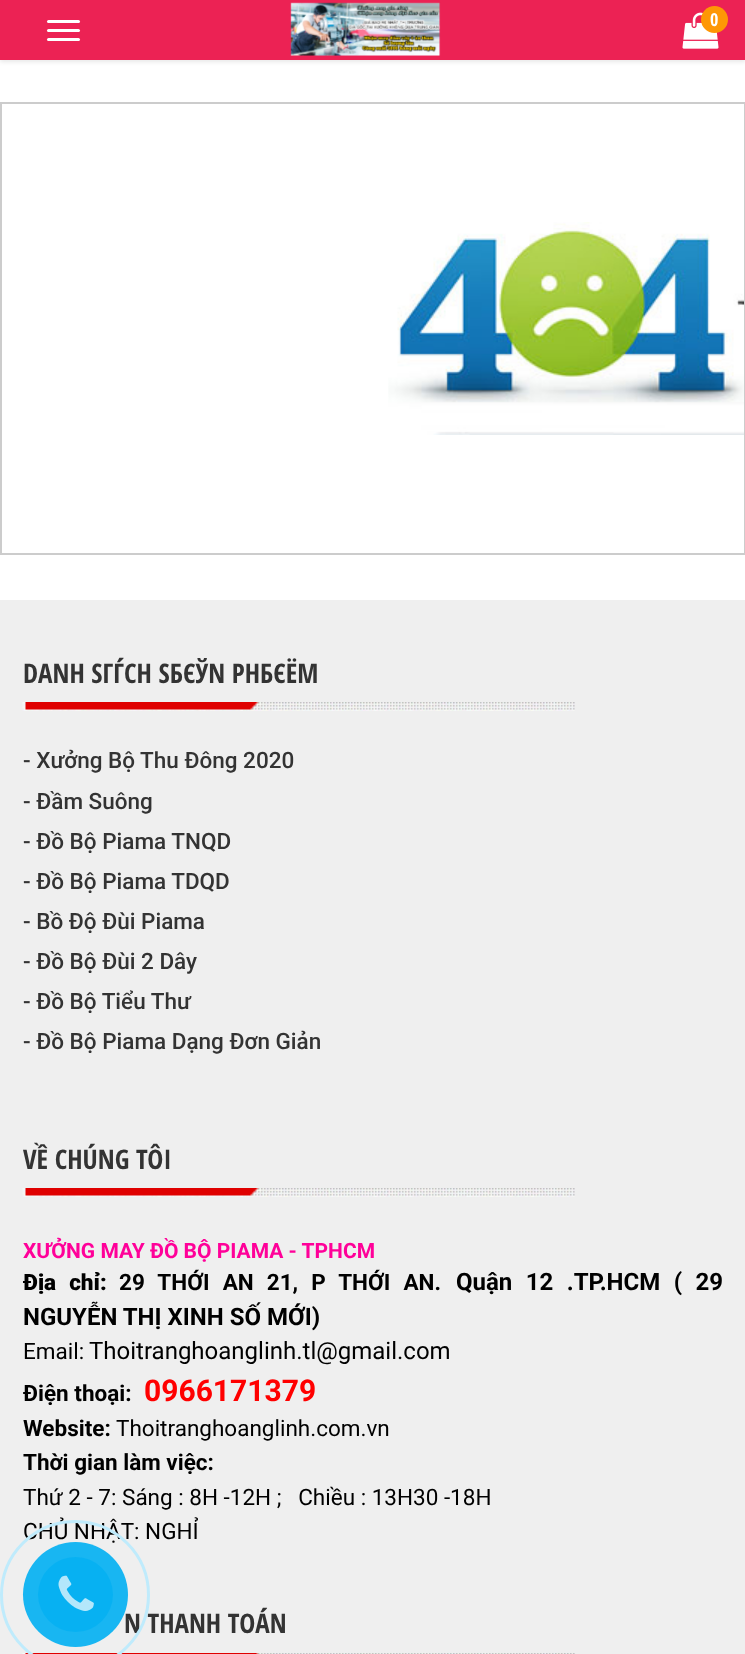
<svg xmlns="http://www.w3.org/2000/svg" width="745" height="1654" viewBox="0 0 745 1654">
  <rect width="100%" height="100%" fill="rgb(255,255,255)"/>
  <rect x="0" y="2" width="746" height="60" fill="rgba(0,0,0,0.09)" filter="blur(2px)"/>
  <rect x="0" y="0" width="745" height="60" fill="rgb(236,34,84)"/>
  <image x="290" y="2" width="151" height="54" href="pic1.png"/>
  <image x="682" y="12" width="37" height="37" href="pic2.png"/>
  <circle cx="714.5" cy="19.5" r="13.5" fill="rgb(254,151,5)"/>
  <text x="710" y="26" font-family="Open Sans Condensed" font-size="18" font-weight="bold" fill="rgb(255,255,255)">0</text>
  <image x="388" y="222" width="356" height="213" href="pic3.png"/>
  <rect x="1" y="103" width="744" height="451" fill="none" stroke="rgb(204,204,204)" stroke-width="2"/>
  <rect x="0" y="600" width="745" height="1054" fill="rgb(239,239,239)"/>
  <image x="22" y="702" width="553" height="9" href="pic4.png"/>
  <text x="23" y="683" font-family="Open Sans Condensed" font-size="27" font-weight="bold" fill="rgb(51,51,51)">DANH SГЃCH SБЄЎN PHБЄЁM</text>
  <g font-family="Roboto" font-size="22.5" font-weight="500" fill="rgb(51,51,51)">
    <text>
      <tspan x="23" y="768">- Xưởng Bộ Thu Đông 2020</tspan>
      <tspan x="23" y="809">- Đầm Suông</tspan>
      <tspan x="23" y="849">- Đồ Bộ Piama TNQD</tspan>
      <tspan x="23" y="889">- Đồ Bộ Piama TDQD</tspan>
      <tspan x="23" y="929">- Bồ Độ Đùi Piama</tspan>
      <tspan x="23" y="969">- Đồ Bộ Đùi 2 Dây</tspan>
      <tspan x="23" y="1009">- Đồ Bộ Tiểu Thư</tspan>
      <tspan x="23" y="1049">- Đồ Bộ Piama Dạng Đơn Giản</tspan>
    </text>
  </g>
  <image x="22" y="1188" width="553" height="9" href="pic4.png"/>
  <text x="23" y="1169" font-family="Open Sans Condensed" font-size="27" font-weight="bold" fill="rgb(51,51,51)">VỀ CHÚNG TÔI</text>
  <text x="23" y="1258" font-family="Roboto" font-size="21" font-weight="bold" fill="rgb(255,0,153)">XƯỞNG MAY ĐỒ BỘ PIAMA - TPHCM</text>
  <text x="23" y="1290" word-spacing="7.5" font-family="Roboto" font-size="22.5" font-weight="900" fill="rgb(0,0,0)">Địa chỉ:</text>
  <text x="119" y="1290" word-spacing="7.5" font-family="Roboto" font-size="22.5" font-weight="bold" fill="rgb(0,0,0)">29 THỚI AN 21, P THỚI AN.</text>
  <g font-family="Roboto" font-size="24" font-weight="bold" fill="rgb(0,0,0)">
    <text x="456" y="1290" word-spacing="7.5">Quận 12 .TP.HCM ( 29</text>
    <text x="23" y="1325">NGUYỄN THỊ XINH SỐ MỚI)</text>
  </g>
  <text x="23" y="1359" font-family="Roboto" font-size="22.5" fill="rgb(0,0,0)">Email:</text>
  <text x="89" y="1359" font-family="Roboto" font-size="24" fill="rgb(0,0,0)">Thoitranghoanglinh.tl@gmail.com</text>
  <text x="23" y="1401" font-family="Roboto" font-size="22.5" font-weight="bold" fill="rgb(0,0,0)">Điện thoại:</text>
  <text x="144" y="1401" font-family="Roboto" font-size="30" font-weight="bold" fill="rgb(255,0,0)">0966171379</text>
  <text x="23" y="1436" font-family="Roboto" font-size="22.5" font-weight="bold" fill="rgb(0,0,0)">Website:</text>
  <text x="116" y="1436" font-family="Roboto" font-size="22.5" fill="rgb(0,0,0)">Thoitranghoanglinh.com.vn</text>
  <text x="23" y="1470" font-family="Roboto" font-size="22.5" font-weight="bold" fill="rgb(0,0,0)">Thời gian làm việc:</text>
  <g font-family="Roboto" font-size="22.5" fill="rgb(0,0,0)">
    <text xml:space="preserve"><tspan x="23" y="1505">Thứ 2 - 7: Sáng : 8H -12H ;   Chiều : 13H30 -18H</tspan><tspan x="23" y="1539">CHỦ NHẬT: NGHỈ</tspan></text>
  </g>
  <image x="22" y="1653" width="553" height="1" href="pic5.png"/>
  <text x="124" y="1633" font-family="Open Sans Condensed" font-size="27" font-weight="bold" fill="rgb(51,51,51)">N THANH TOÁN</text>
  <circle cx="75" cy="1595" r="73.5" fill="none" stroke="rgb(191,235,252)" stroke-width="3"/>
  <circle cx="75.5" cy="1594.5" r="52.5" fill="rgba(0,175,242,0.9)"/>
  <circle cx="75.5" cy="1594.5" r="37.5" fill="rgba(0,175,242,0.7)"/>
  <image x="58" y="1575" width="36" height="36" href="pic6.png"/>
  <rect x="47" y="20" width="33" height="3" rx="1.5" fill="rgb(255,255,255)"/>
  <rect x="47" y="29" width="33" height="3" rx="1.5" fill="rgb(255,255,255)"/>
  <rect x="47" y="38" width="33" height="3" rx="1.5" fill="rgb(255,255,255)"/>
</svg>
